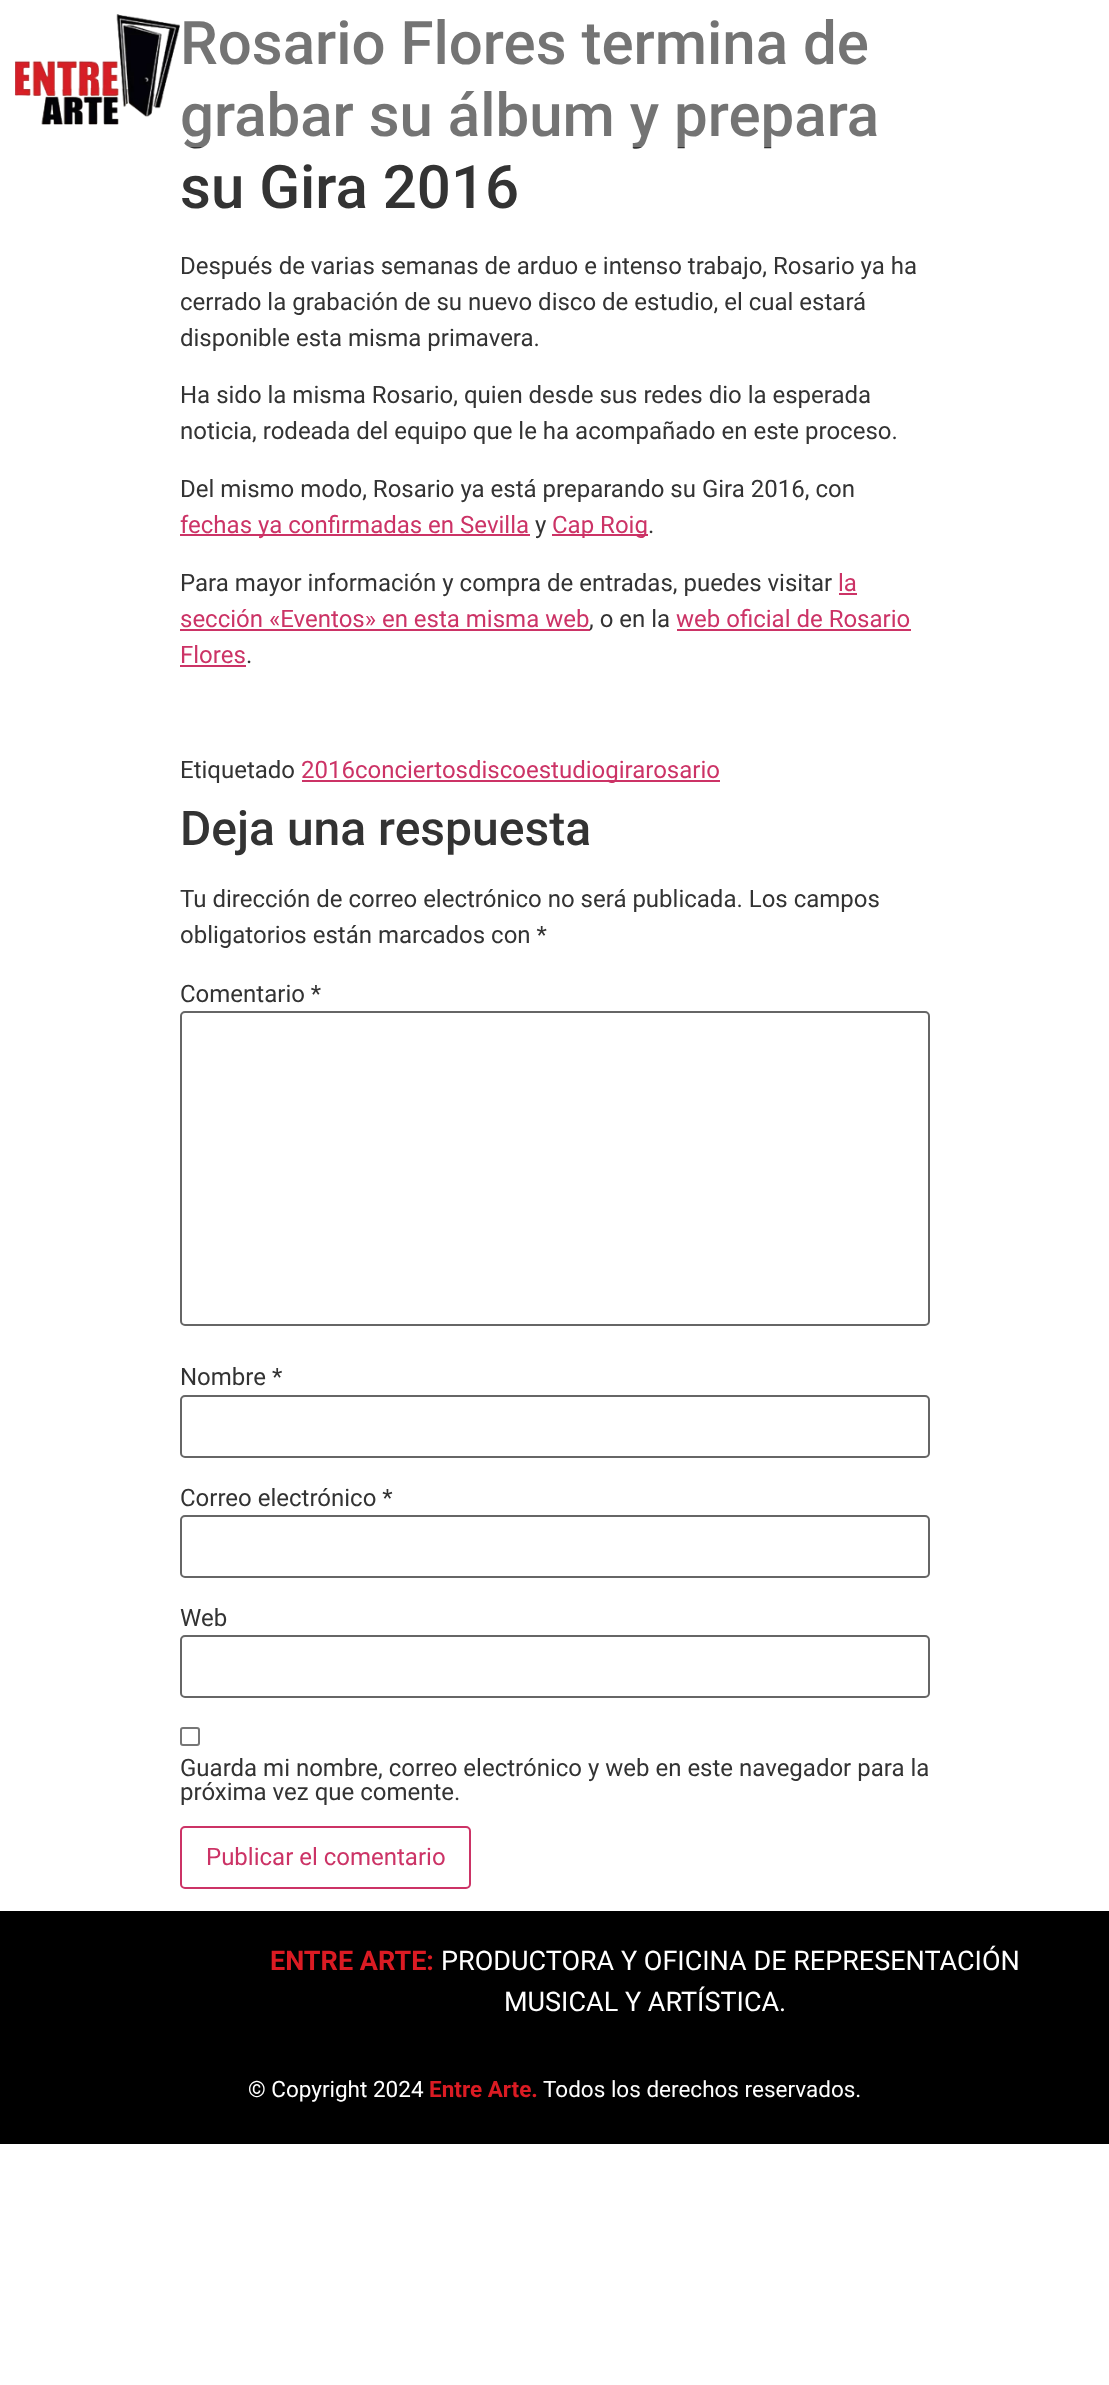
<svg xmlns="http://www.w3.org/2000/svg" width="1109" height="2385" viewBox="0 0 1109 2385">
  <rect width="100%" height="100%" fill="rgb(255,255,255)"/>
  <g font-family="Roboto" font-size="60" font-weight="500" fill="rgb(51,51,51)">
    <text>
      <tspan x="180" y="64">Rosario Flores termina de</tspan>
      <tspan x="180" y="136">grabar su álbum y prepara</tspan>
    </text>
  </g>
  <rect x="182" y="19" width="695" height="128" fill="rgba(255,255,255,0.32)"/>
  <image x="14" y="14" width="166" height="111" href="pic1.png"/>
  <text x="180" y="208" font-family="Roboto" font-size="60" font-weight="500" fill="rgb(51,51,51)">su Gira 2016</text>
  <g font-family="Roboto" font-size="24" fill="rgb(51,51,51)">
    <text>
      <tspan x="180" y="274">Después de varias semanas de arduo e intenso trabajo, Rosario ya ha</tspan>
      <tspan x="180" y="310">cerrado la grabación de su nuevo disco de estudio, el cual estará</tspan>
      <tspan x="180" y="346">disponible esta misma primavera.</tspan>
    </text>
    <text>
      <tspan x="180" y="403">Ha sido la misma Rosario, quien desde sus redes dio la esperada</tspan>
      <tspan x="180" y="439">noticia, rodeada del equipo que le ha acompañado en este proceso.</tspan>
    </text>
    <text x="180" y="497">Del mismo modo, Rosario ya está preparando su Gira 2016, con</text>
  </g>
  <rect x="180" y="534" width="350" height="2" fill="rgb(204,51,102)"/>
  <text x="180" y="533" font-family="Roboto" font-size="24" fill="rgb(204,51,102)">fechas ya confirmadas en Sevilla</text>
  <text x="535" y="533" font-family="Roboto" font-size="24" fill="rgb(51,51,51)">y</text>
  <rect x="552" y="534" width="96" height="2" fill="rgb(204,51,102)"/>
  <text x="552" y="533" font-family="Roboto" font-size="24" fill="rgb(204,51,102)">Cap Roig</text>
  <g font-family="Roboto" font-size="24" fill="rgb(51,51,51)">
    <text x="648" y="533">.</text>
    <text x="180" y="591">Para mayor información y compra de entradas, puedes visitar</text>
  </g>
  <text x="838" y="591" font-family="Roboto" font-size="24" fill="rgb(204,51,102)">la</text>
  <rect x="839" y="593" width="18" height="2" fill="rgb(204,51,102)"/>
  <text x="180" y="627" font-family="Roboto" font-size="24" fill="rgb(204,51,102)">sección «Eventos» en esta misma web</text>
  <rect x="180" y="629" width="410" height="2" fill="rgb(204,51,102)"/>
  <text x="589" y="627" font-family="Roboto" font-size="24" fill="rgb(51,51,51)">, o en la</text>
  <text x="676" y="627" font-family="Roboto" font-size="24" fill="rgb(204,51,102)">web oficial de Rosario</text>
  <rect x="677" y="629" width="234" height="2" fill="rgb(204,51,102)"/>
  <text x="180" y="663" font-family="Roboto" font-size="24" fill="rgb(204,51,102)">Flores</text>
  <rect x="180" y="665" width="66" height="2" fill="rgb(204,51,102)"/>
  <g font-family="Roboto" font-size="24" fill="rgb(51,51,51)">
    <text x="246" y="663">.</text>
    <text x="180" y="778">Etiquetado</text>
  </g>
  <rect x="302" y="780" width="418" height="2" fill="rgb(204,51,102)"/>
  <text x="301" y="778" font-family="Roboto" font-size="24" fill="rgb(204,51,102)">2016conciertosdiscoestudiogirarosario</text>
  <text x="180" y="845" font-family="Roboto" font-size="48" font-weight="500" fill="rgb(51,51,51)">Deja una respuesta</text>
  <g font-family="Roboto" font-size="24" fill="rgb(51,51,51)">
    <text>
      <tspan x="180" y="907">Tu dirección de correo electrónico no será publicada. Los campos</tspan>
      <tspan x="180" y="943">obligatorios están marcados con *</tspan>
    </text>
    <text x="180" y="1002">Comentario *</text>
  </g>
  <rect x="181" y="1012" width="748" height="313" rx="4" fill="none" stroke="rgb(102,102,102)" stroke-width="2"/>
  <text x="180" y="1385" font-family="Roboto" font-size="24" fill="rgb(51,51,51)">Nombre *</text>
  <rect x="181" y="1396" width="748" height="61" rx="4" fill="none" stroke="rgb(102,102,102)" stroke-width="2"/>
  <text x="180" y="1506" font-family="Roboto" font-size="24" fill="rgb(51,51,51)">Correo electrónico *</text>
  <rect x="181" y="1516" width="748" height="61" rx="4" fill="none" stroke="rgb(102,102,102)" stroke-width="2"/>
  <text x="180" y="1626" font-family="Roboto" font-size="24" fill="rgb(51,51,51)">Web</text>
  <rect x="181" y="1636" width="748" height="61" rx="4" fill="none" stroke="rgb(102,102,102)" stroke-width="2"/>
  <rect x="181" y="1728" width="18" height="17" rx="2" fill="none" stroke="rgb(118,118,118)" stroke-width="2"/>
  <g font-family="Roboto" font-size="24" fill="rgb(51,51,51)">
    <text>
      <tspan x="180" y="1776">Guarda mi nombre, correo electrónico y web en este navegador para la</tspan>
      <tspan x="180" y="1800">próxima vez que comente.</tspan>
    </text>
  </g>
  <rect x="181" y="1827" width="289" height="61" rx="4" fill="none" stroke="rgb(204,51,102)" stroke-width="2"/>
  <text x="206" y="1865" font-family="Roboto" font-size="24" fill="rgb(204,51,102)">Publicar el comentario</text>
  <rect x="0" y="1911" width="1109" height="233" fill="rgb(0,0,0)"/>
  <text x="270" y="1970" font-family="Roboto" font-size="27" font-weight="bold" fill="rgb(219,27,35)">ENTRE ARTE:</text>
  <g font-family="Roboto" font-size="27" fill="rgb(255,255,255)">
    <text x="441" y="1970">PRODUCTORA Y OFICINA DE REPRESENTACIÓN</text>
    <text x="504" y="2011">MUSICAL Y ARTÍSTICA.</text>
  </g>
  <text x="248" y="2097" font-family="Roboto" font-size="22.5" fill="rgb(255,255,255)">© Copyright 2024</text>
  <text x="429" y="2097" font-family="Roboto" font-size="22.5" font-weight="bold" fill="rgb(219,27,35)">Entre Arte.</text>
  <text x="543" y="2097" font-family="Roboto" font-size="22.5" fill="rgb(255,255,255)">Todos los derechos reservados.</text>
</svg>
